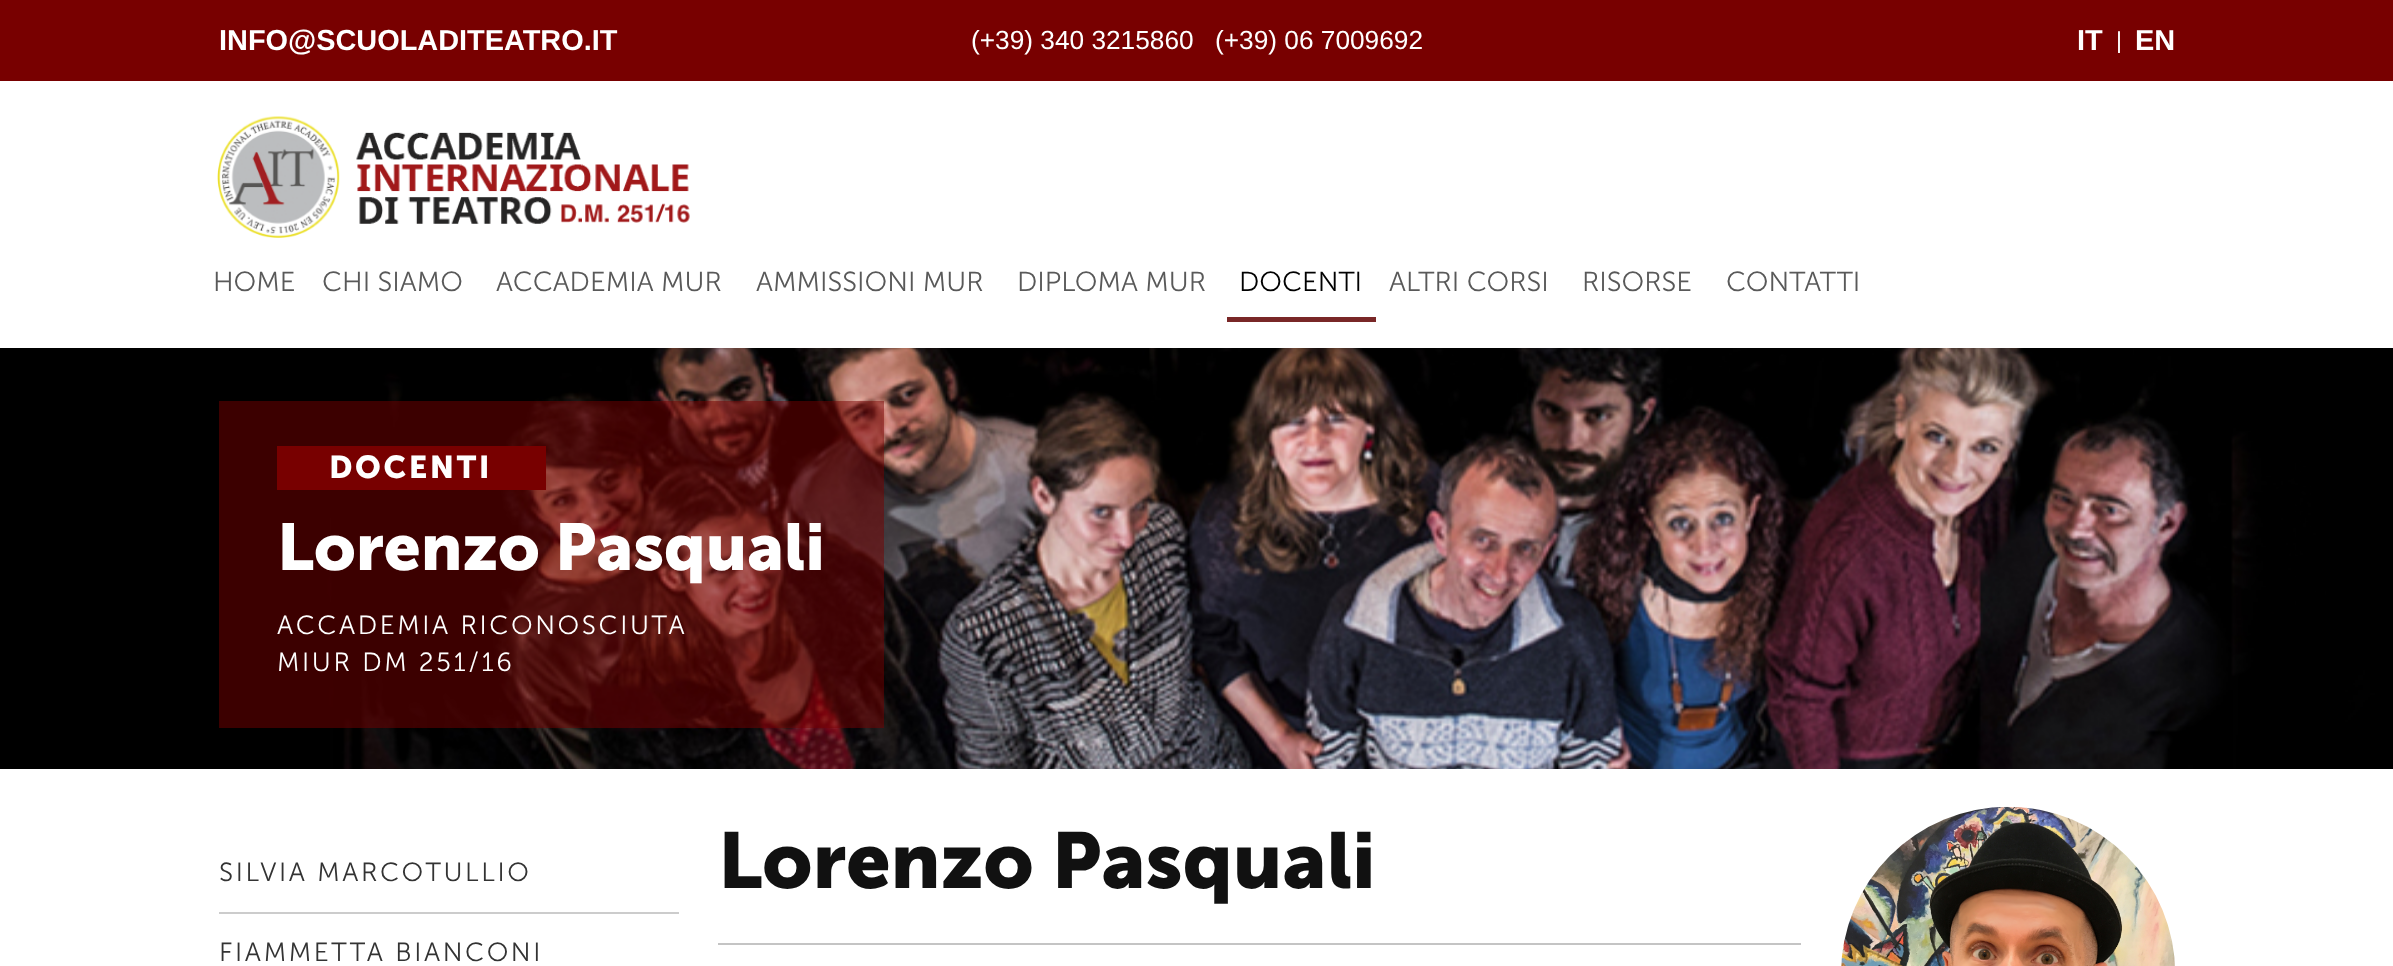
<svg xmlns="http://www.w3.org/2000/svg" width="2393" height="966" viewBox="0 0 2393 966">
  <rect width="100%" height="100%" fill="rgb(255,255,255)"/>
  <rect x="0" y="0" width="2393" height="81" fill="rgb(120,0,0)"/>
  <text x="219" y="50" font-family="Liberation Sans" font-size="28.9" font-weight="bold" fill="rgb(255,255,255)">INFO@SCUOLADITEATRO.IT</text>
  <g font-family="Liberation Sans" font-size="26.25" fill="rgb(255,255,255)">
    <text x="971" y="49">(+39) 340 3215860</text>
    <text x="1215" y="49">(+39) 06 7009692</text>
  </g>
  <text x="2077" y="50" font-family="Liberation Sans" font-size="28.9" font-weight="bold" fill="rgb(255,255,255)">IT</text>
  <text x="2116" y="48" font-family="Liberation Sans" font-size="23" fill="rgb(255,255,255)">|</text>
  <text x="2135" y="50" font-family="Liberation Sans" font-size="28.9" font-weight="bold" fill="rgb(255,255,255)">EN</text>
  <image x="217" y="116" width="473" height="122" href="pic1.png"/>
  <g font-family="'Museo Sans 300'" font-size="27.5" font-weight="300" fill="rgb(89,89,89)">
    <text x="213" y="291">HOME</text>
    <text x="322" y="291">CHI SIAMO</text>
    <text x="496" y="291">ACCADEMIA MUR</text>
    <text x="756" y="291">AMMISSIONI MUR</text>
    <text x="1017" y="291">DIPLOMA MUR</text>
  </g>
  <rect x="1227" y="317" width="149" height="5" fill="rgb(121,39,39)"/>
  <text x="1239" y="291" font-family="'Museo Sans 300'" font-size="27.5" font-weight="300" fill="rgb(0,0,0)">DOCENTI</text>
  <g font-family="'Museo Sans 300'" font-size="27.5" font-weight="300" fill="rgb(89,89,89)">
    <text x="1389" y="291">ALTRI CORSI</text>
    <text x="1582" y="291">RISORSE</text>
    <text x="1726" y="291">CONTATTI</text>
  </g>
  <image x="0" y="348" width="2393" height="421" href="pic2.png"/>
  <rect x="219" y="401" width="665" height="327" fill="rgba(120,0,0,0.5)"/>
  <rect x="277" y="446" width="269" height="44" fill="rgb(120,0,0)"/>
  <text x="329" y="478" font-family="'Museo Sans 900'" font-size="31.5" font-weight="bold" letter-spacing="2.6" fill="rgb(255,255,255)">DOCENTI</text>
  <text x="277" y="570" font-family="'Museo Sans 900'" font-size="65.6" font-weight="bold" fill="rgb(255,255,255)">Lorenzo Pasquali</text>
  <g font-family="'Museo Sans 300'" font-size="26.25" font-weight="300" letter-spacing="2.6" fill="rgb(255,255,255)">
    <text>
      <tspan x="277" y="634">ACCADEMIA RICONOSCIUTA</tspan>
      <tspan x="277" y="671">MIUR DM 251/16</tspan>
    </text>
  </g>
  <rect x="219" y="912" width="460" height="2" fill="rgb(204,204,204)"/>
  <g font-family="'Museo Sans 300'" font-size="26.25" font-weight="300" letter-spacing="2.6" fill="rgb(51,51,51)">
    <text x="219" y="881">SILVIA MARCOTULLIO</text>
    <text x="219" y="961">FIAMMETTA BIANCONI</text>
  </g>
  <text x="718" y="888" font-family="'Museo Sans 900'" font-size="78.75" font-weight="bold" fill="rgb(17,17,17)">Lorenzo Pasquali</text>
  <rect x="718" y="943" width="1083" height="2" fill="rgb(196,196,196)"/>
  <image x="1841" y="806" width="334" height="160" href="pic3.png"/>
</svg>
